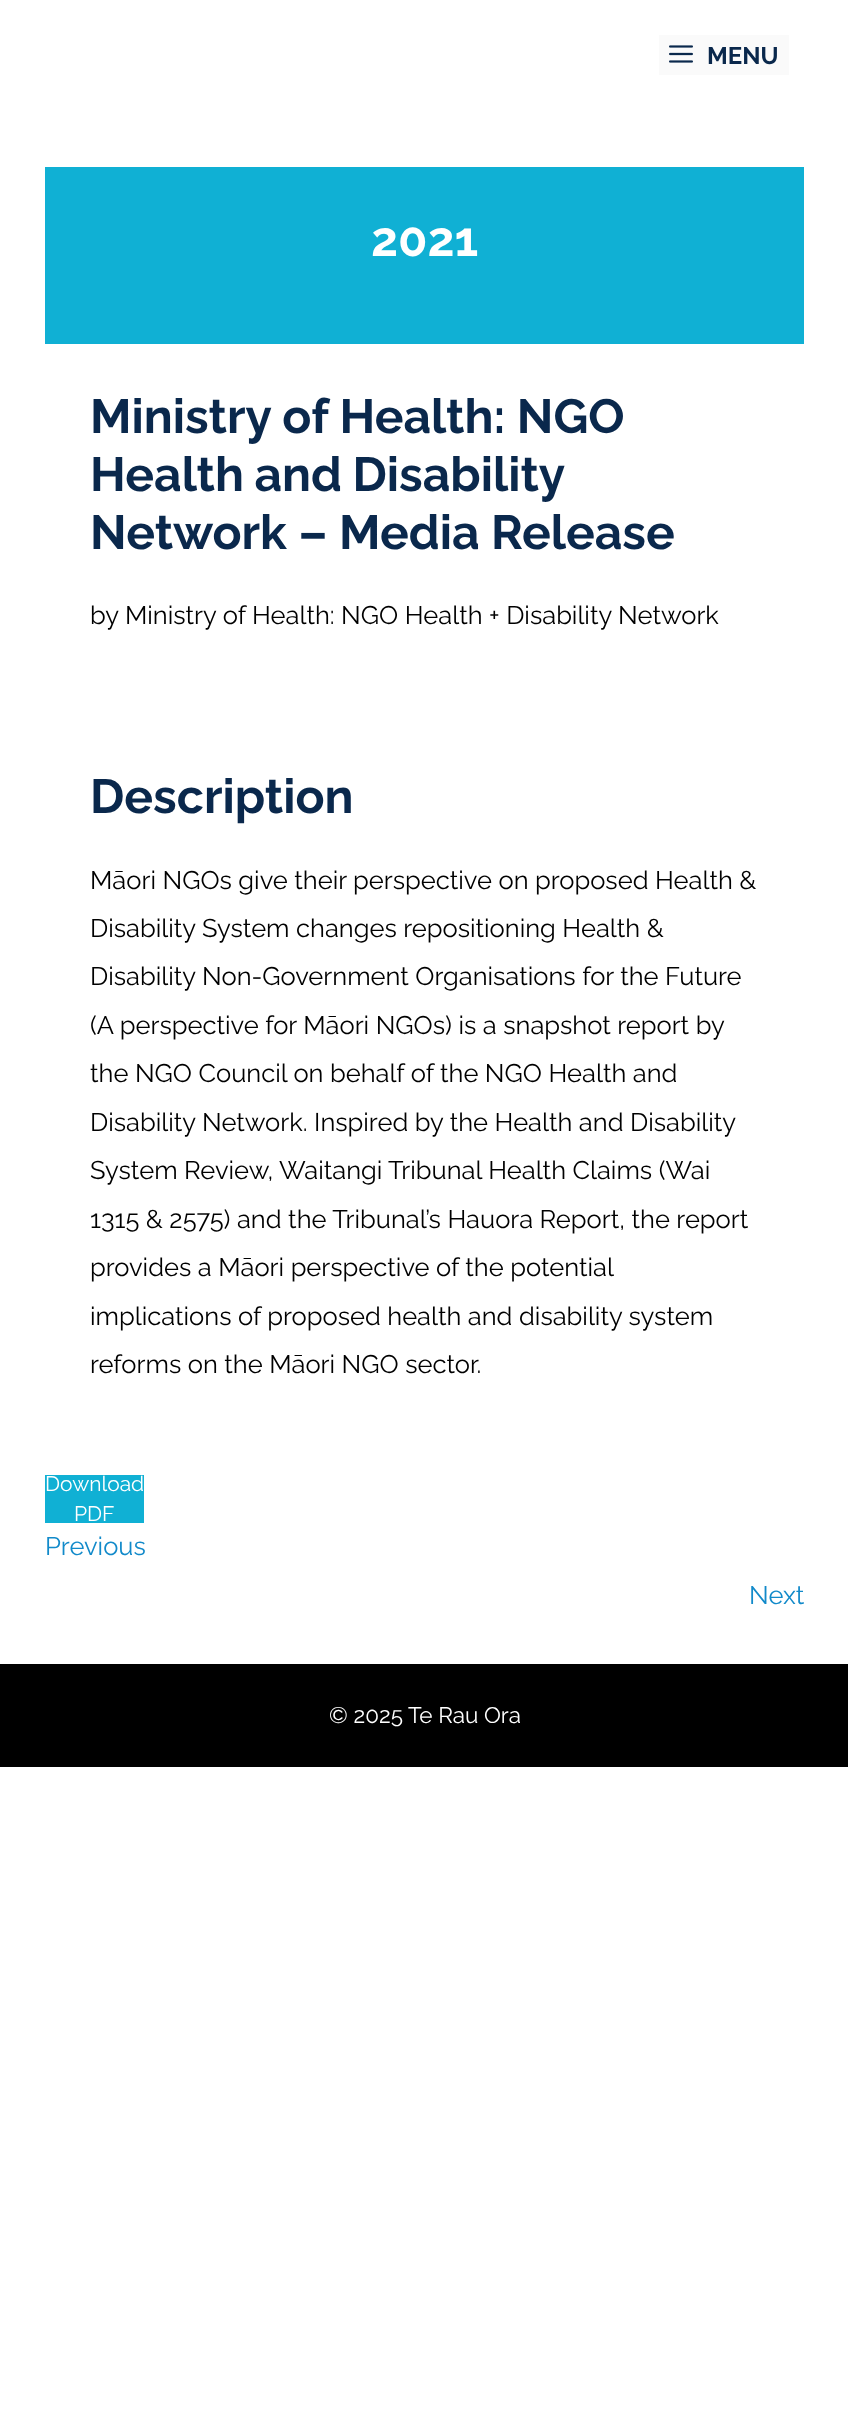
<svg xmlns="http://www.w3.org/2000/svg" width="848" height="2431" viewBox="0 0 848 2431">
  <rect width="100%" height="100%" fill="rgb(255,255,255)"/>
  <rect x="659" y="35" width="130" height="40" fill="rgb(250,250,250)"/>
  <image x="669" y="45" width="24" height="18" href="pic1.png"/>
  <text x="707" y="64" font-family="Raleway" font-size="24" font-weight="bold" fill="rgb(10,40,76)">MENU</text>
  <rect x="45" y="167" width="759" height="177" fill="rgb(16,176,212)"/>
  <text x="371" y="256" font-family="Raleway" font-size="48" font-weight="bold" fill="rgb(255,255,255)">2021</text>
  <g font-family="Raleway" font-size="48" font-weight="bold" fill="rgb(10,40,76)">
    <text>
      <tspan x="90" y="433">Ministry of Health: NGO</tspan>
      <tspan x="90" y="491" word-spacing="-1">Health and Disability</tspan>
      <tspan x="90" y="549">Network – Media Release</tspan>
    </text>
  </g>
  <text x="90" y="624" font-family="Raleway" font-size="25.5" fill="rgb(0,0,0)">by Ministry of Health: NGO Health + Disability Network</text>
  <text x="90" y="813" font-family="Raleway" font-size="48" font-weight="bold" fill="rgb(10,40,76)">Description</text>
  <g font-family="Raleway" font-size="25.5" fill="rgb(0,0,0)">
    <text>
      <tspan x="90" y="889">Māori NGOs give their perspective on proposed Health &amp;</tspan>
      <tspan x="90" y="937">Disability System changes repositioning Health &amp;</tspan>
      <tspan x="90" y="985">Disability Non-Government Organisations for the Future</tspan>
      <tspan x="90" y="1034">(A perspective for Māori NGOs) is a snapshot report by</tspan>
      <tspan x="90" y="1082">the NGO Council on behalf of the NGO Health and</tspan>
      <tspan x="90" y="1131">Disability Network. Inspired by the Health and Disability</tspan>
      <tspan x="90" y="1179">System Review, Waitangi Tribunal Health Claims (Wai</tspan>
      <tspan x="90" y="1228">1315 &amp; 2575) and the Tribunal’s Hauora Report, the report</tspan>
      <tspan x="90" y="1276">provides a Māori perspective of the potential</tspan>
      <tspan x="90" y="1325">implications of proposed health and disability system</tspan>
      <tspan x="90" y="1373">reforms on the Māori NGO sector.</tspan>
    </text>
  </g>
  <rect x="45" y="1475" width="99" height="48" fill="rgb(16,176,212)"/>
  <g font-family="Raleway" font-size="21" fill="rgb(255,255,255)">
    <text x="45" y="1491">Download</text>
    <text x="74" y="1521">PDF</text>
  </g>
  <g font-family="Raleway" font-size="25.5" fill="rgb(18,138,202)">
    <text x="45" y="1555">Previous</text>
    <text x="749" y="1604">Next</text>
  </g>
  <rect x="0" y="1664" width="848" height="103" fill="rgb(0,0,0)"/>
  <text x="329" y="1723" font-family="Raleway" font-size="22.5" fill="rgb(255,255,255)">© 2025 Te Rau Ora</text>
</svg>
